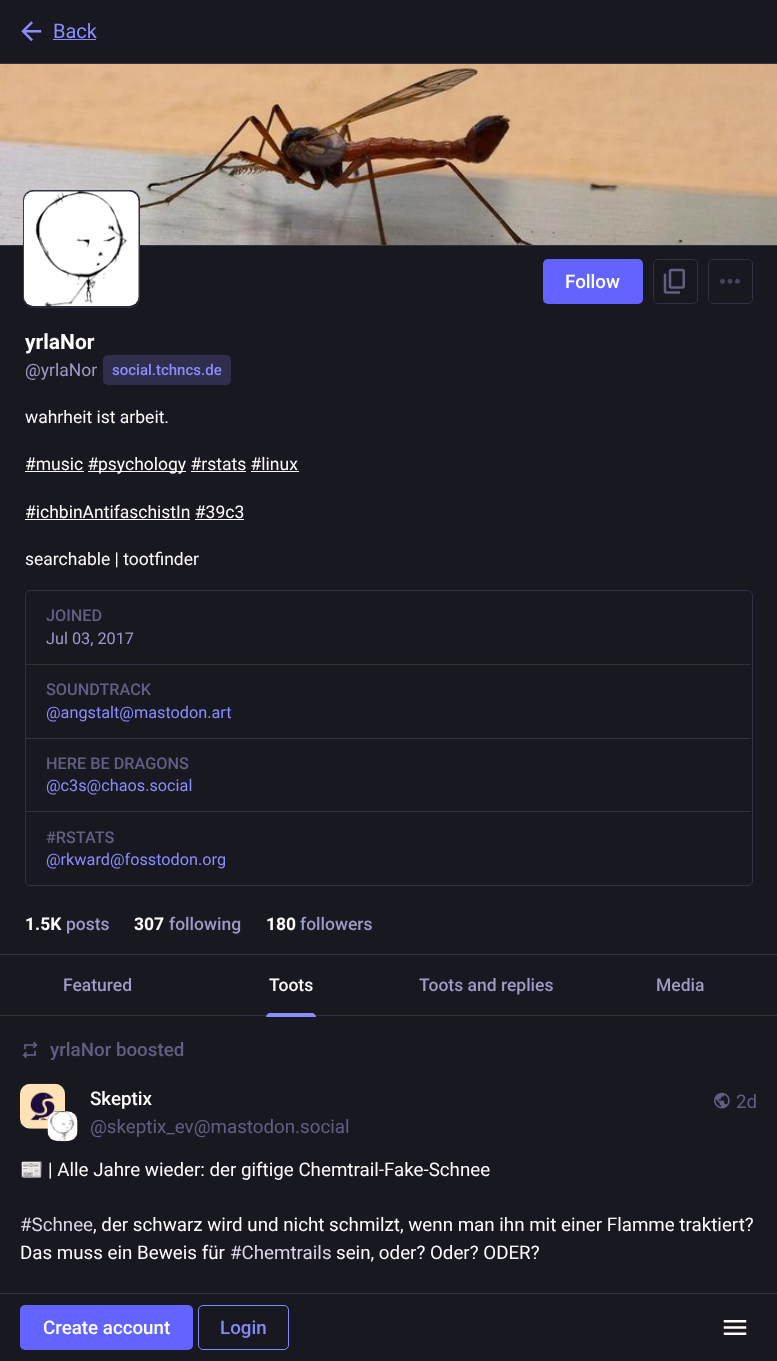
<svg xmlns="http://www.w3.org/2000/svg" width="777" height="1361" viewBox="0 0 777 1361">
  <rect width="100%" height="100%" fill="rgb(24,24,33)"/>
  <rect x="0" y="63" width="777" height="1" fill="rgb(49,49,68)"/>
  <image x="21" y="21" width="21" height="21" href="pic1.png"/>
  <text x="53" y="38" font-family="Roboto" font-size="20" fill="rgb(140,141,255)">Back</text>
  <rect x="53" y="39" width="43" height="1" fill="rgb(140,141,255)"/>
  <rect x="0" y="245" width="777" height="1" fill="rgb(49,49,68)"/>
  <image x="0" y="64" width="777" height="181" href="pic2.png"/>
  <rect x="0" y="954" width="777" height="1" fill="rgb(49,49,68)"/>
  <rect x="23.5" y="190.5" width="116" height="117" rx="9.5" fill="rgb(24,24,33)" stroke="rgb(49,49,68)"/>
  <image x="23" y="191" width="116" height="116" href="pic3.png"/>
  <rect x="543" y="259" width="100" height="45" rx="5" fill="rgb(99,100,255)"/>
  <text x="565" y="288" font-family="Roboto" font-size="18.75" font-weight="500" fill="rgb(255,255,255)">Follow</text>
  <rect x="653.5" y="259.5" width="44" height="44" rx="4.5" fill="none" stroke="rgb(49,49,68)"/>
  <image x="663" y="268" width="22" height="26" href="pic4.png"/>
  <rect x="708.5" y="259.5" width="44" height="44" rx="4.5" fill="none" stroke="rgb(49,49,68)"/>
  <image x="720" y="278" width="20" height="6" href="pic5.png"/>
  <text x="25" y="349" font-family="Roboto" font-size="21" font-weight="bold" fill="rgb(255,255,255)">yrlaNor</text>
  <text x="25" y="376" font-family="Roboto" font-size="17.5" fill="rgb(156,156,201)">@yrlaNor</text>
  <rect x="103" y="355" width="128" height="30" rx="5" fill="rgb(47,47,77)"/>
  <text x="112" y="375" font-family="Roboto" font-size="15" font-weight="500" fill="rgb(140,141,255)">social.tchncs.de</text>
  <g font-family="Roboto" font-size="17.5" fill="rgb(255,255,255)">
    <text x="25" y="423">wahrheit ist arbeit.</text>
    <text x="25" y="470">#music #</text>
  </g>
  <rect x="25" y="471" width="59" height="1" fill="rgb(255,255,255)"/>
  <rect x="88" y="471" width="98" height="1" fill="rgb(255,255,255)"/>
  <text x="98" y="470" font-family="Roboto" font-size="17.5" fill="rgb(255,255,255)">psychology #rstats #linux</text>
  <rect x="191" y="471" width="55" height="1" fill="rgb(255,255,255)"/>
  <rect x="251" y="471" width="48" height="1" fill="rgb(255,255,255)"/>
  <text x="25" y="518" font-family="Roboto" font-size="17.5" fill="rgb(255,255,255)">#ichbinAntifaschistIn #39c3</text>
  <rect x="25" y="519" width="165" height="1" fill="rgb(255,255,255)"/>
  <rect x="195" y="519" width="49" height="1" fill="rgb(255,255,255)"/>
  <text x="25" y="565" font-family="Roboto" font-size="17.5" fill="rgb(255,255,255)">searchable | tootfinder</text>
  <rect x="25.5" y="590.5" width="727" height="295" rx="4.5" fill="none" stroke="rgb(49,49,68)"/>
  <rect x="26" y="664" width="725" height="1" fill="rgb(49,49,68)"/>
  <text x="46" y="621" font-family="Roboto" font-size="16.25" font-weight="500" fill="rgb(96,96,133)">JOINED</text>
  <text x="46" y="644" font-family="Roboto" font-size="16.25" fill="rgb(156,156,201)">Jul 03, 2017</text>
  <rect x="26" y="738" width="725" height="1" fill="rgb(49,49,68)"/>
  <text x="46" y="695" font-family="Roboto" font-size="16.25" font-weight="500" fill="rgb(96,96,133)">SOUNDTRACK</text>
  <text x="46" y="718" font-family="Roboto" font-size="16.25" fill="rgb(140,141,255)">@angstalt@mastodon.art</text>
  <rect x="26" y="811" width="725" height="1" fill="rgb(49,49,68)"/>
  <text x="46" y="769" font-family="Roboto" font-size="16.25" font-weight="500" fill="rgb(96,96,133)">HERE BE DRAGONS</text>
  <text x="46" y="791" font-family="Roboto" font-size="16.25" fill="rgb(140,141,255)">@c3s@chaos.social</text>
  <text x="46" y="843" font-family="Roboto" font-size="16.25" font-weight="500" fill="rgb(96,96,133)">#RSTATS</text>
  <text x="46" y="865" font-family="Roboto" font-size="16.25" fill="rgb(140,141,255)">@rkward@fosstodon.org</text>
  <text x="25" y="930" font-family="Roboto" font-size="17.5" font-weight="bold" fill="rgb(255,255,255)">1.5K</text>
  <text x="66" y="930" font-family="Roboto" font-size="17.5" font-weight="500" fill="rgb(156,156,201)">posts</text>
  <text x="134" y="930" font-family="Roboto" font-size="17.5" font-weight="bold" fill="rgb(255,255,255)">307</text>
  <text x="169" y="930" font-family="Roboto" font-size="17.5" font-weight="500" fill="rgb(156,156,201)">following</text>
  <text x="266" y="930" font-family="Roboto" font-size="17.5" font-weight="bold" fill="rgb(255,255,255)">180</text>
  <text x="300" y="930" font-family="Roboto" font-size="17.5" font-weight="500" fill="rgb(156,156,201)">followers</text>
  <rect x="0" y="1015" width="777" height="1" fill="rgb(49,49,68)"/>
  <text x="63" y="991" font-family="Roboto" font-size="17.5" font-weight="500" fill="rgb(156,156,201)">Featured</text>
  <text x="269" y="991" font-family="Roboto" font-size="17.5" font-weight="500" fill="rgb(255,255,255)">Toots</text>
  <path d="M270 1013H312C314 1013 316 1015 316 1017H266C266 1015 268 1013 270 1013Z" fill="rgb(140,141,255)"/>
  <g font-family="Roboto" font-size="17.5" font-weight="500" fill="rgb(156,156,201)">
    <text x="419" y="991">Toots and replies</text>
    <text x="656" y="991">Media</text>
  </g>
  <image x="22" y="1041" width="16" height="18" href="pic6.png"/>
  <text x="50" y="1056" font-family="Roboto" font-size="18.75" font-weight="500" fill="rgb(96,96,133)">yrlaNor boosted</text>
  <rect x="20" y="1084" width="45" height="45" rx="10" fill="rgb(32,32,44)"/>
  <image x="20" y="1083" width="45" height="46" href="pic7.png"/>
  <rect x="48" y="1111" width="30" height="30" rx="10" fill="rgb(32,32,44)"/>
  <image x="47" y="1111" width="31" height="31" href="pic8.png"/>
  <text x="90" y="1105" font-family="Roboto" font-size="18.75" font-weight="500" fill="rgb(255,255,255)">Skeptix</text>
  <text x="90" y="1133" font-family="Roboto" font-size="18.75" fill="rgb(96,96,133)">@skeptix_ev@mastodon.social</text>
  <image x="714" y="1092" width="16" height="17" href="pic9.png"/>
  <text x="736" y="1108" font-family="Roboto" font-size="18.75" fill="rgb(96,96,133)">2d</text>
  <text x="20" y="1176" font-family="Noto Color Emoji" font-size="18.75" fill="rgb(255,255,255)">📰</text>
  <text x="48" y="1176" font-family="Roboto" font-size="18.75" fill="rgb(255,255,255)">| Alle Jahre wieder: der giftige Chemtrail-Fake-Schnee</text>
  <text x="20" y="1231" font-family="Roboto" font-size="18.75" fill="rgb(221,217,232)">#Schnee</text>
  <g font-family="Roboto" font-size="18.75" fill="rgb(255,255,255)">
    <text x="93" y="1231">, der schwarz wird und nicht schmilzt, wenn man ihn mit einer Flamme traktiert?</text>
    <text x="20" y="1259">Das muss ein Beweis für</text>
  </g>
  <text x="230" y="1259" font-family="Roboto" font-size="18.75" fill="rgb(221,217,232)">#Chemtrails</text>
  <text x="336" y="1259" font-family="Roboto" font-size="18.75" fill="rgb(255,255,255)">sein, oder? Oder? ODER?</text>
  <rect x="0" y="1293" width="777" height="1" fill="rgb(49,49,68)"/>
  <rect x="20" y="1305" width="173" height="45" rx="5" fill="rgb(99,100,255)"/>
  <text x="43" y="1334" font-family="Roboto" font-size="18.75" font-weight="500" fill="rgb(255,255,255)">Create account</text>
  <rect x="198.5" y="1305.5" width="90" height="44" rx="4.5" fill="none" stroke="rgb(133,138,250)"/>
  <text x="220" y="1334" font-family="Roboto" font-size="18.75" font-weight="500" fill="rgb(133,138,250)">Login</text>
  <image x="723" y="1320" width="24" height="15" href="pic10.png"/>
</svg>
